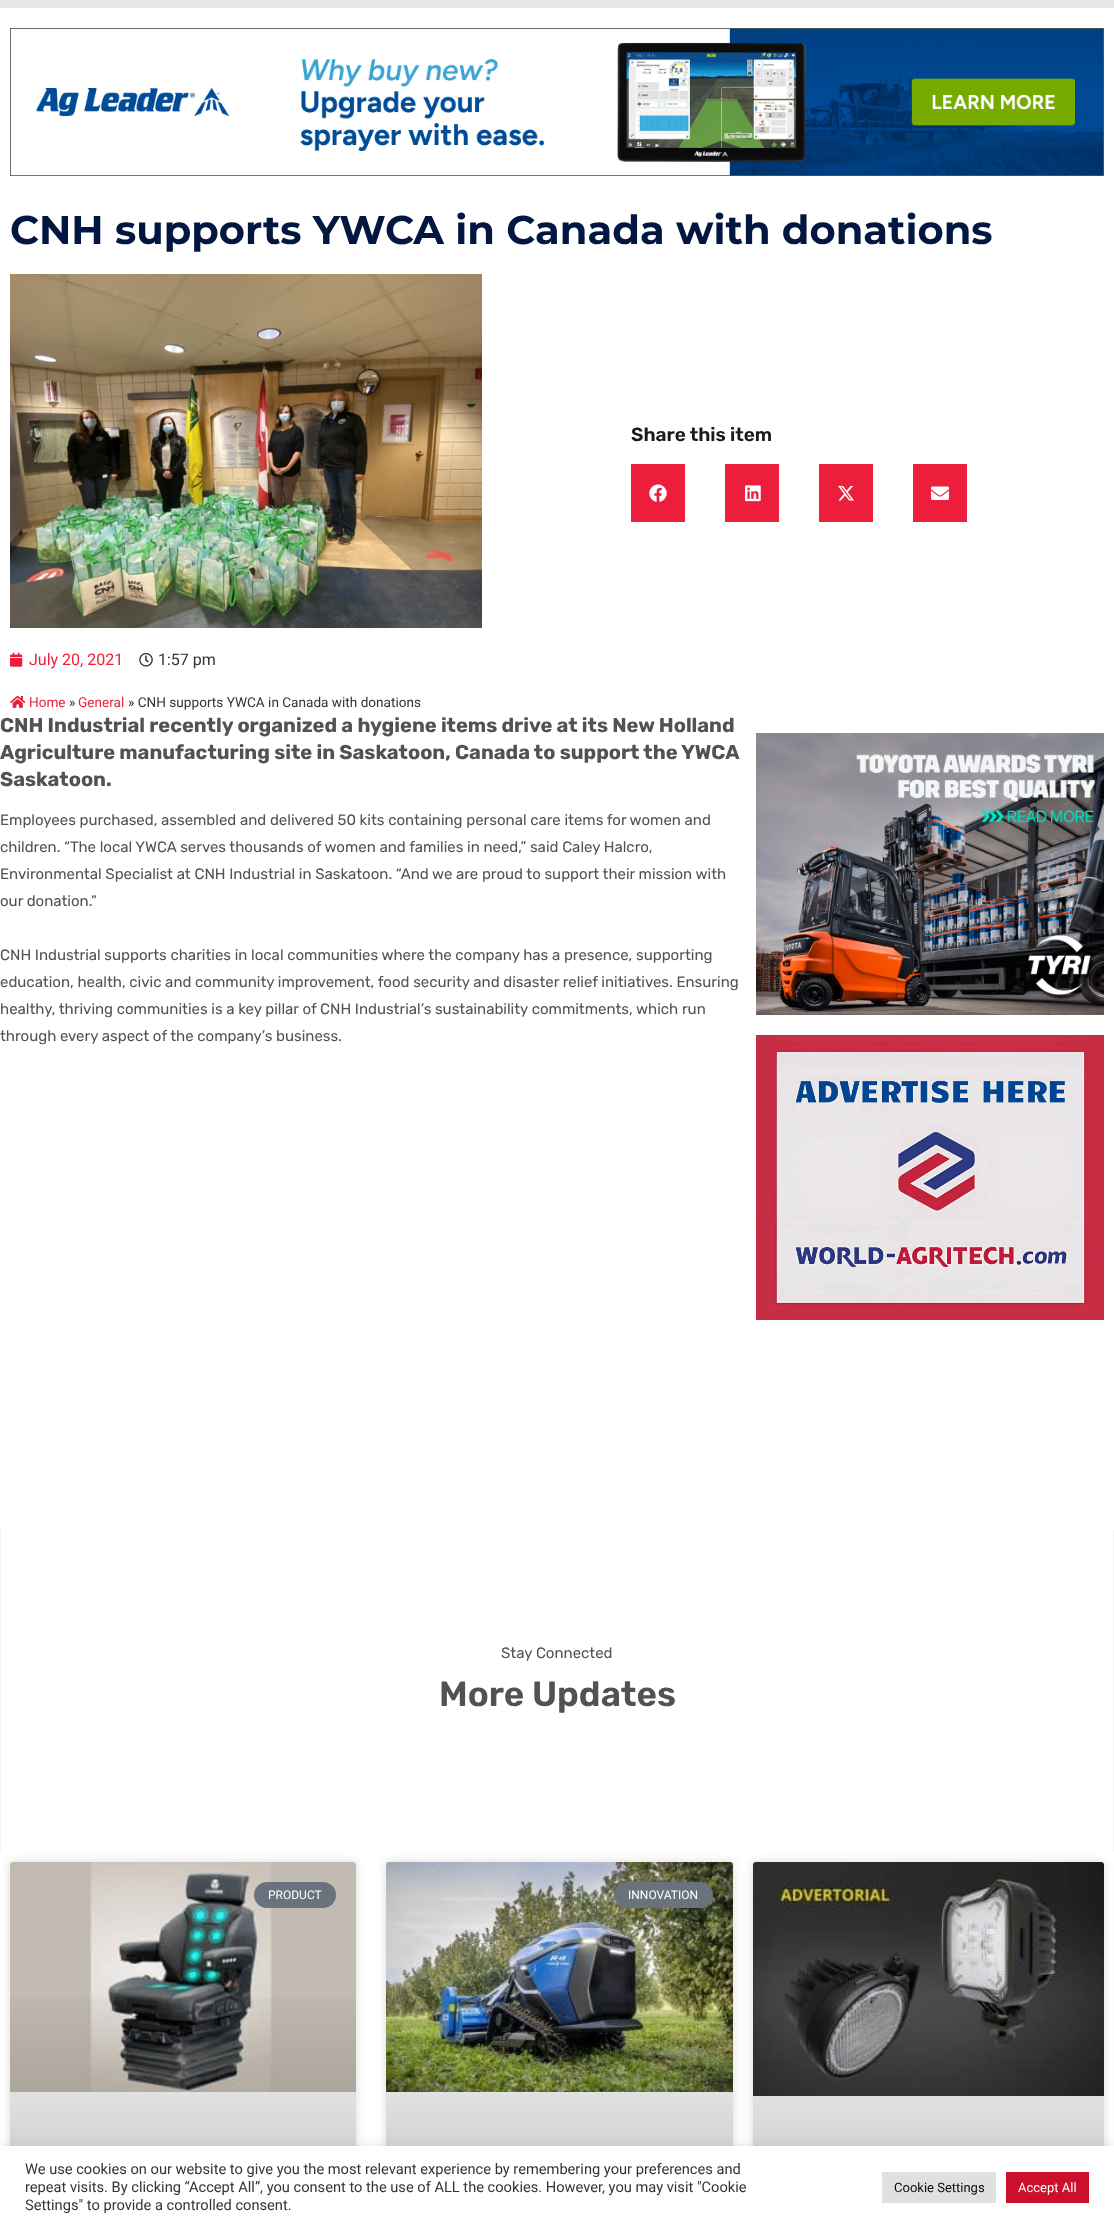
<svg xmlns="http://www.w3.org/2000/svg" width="1114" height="2228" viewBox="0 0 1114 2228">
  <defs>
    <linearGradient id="g1" gradientUnits="userSpaceOnUse" x1="183" y1="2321" x2="183" y2="1862"><stop offset="0" stop-color="rgb(0,0,0)" stop-opacity="0.35"/><stop offset="0.75" stop-color="rgb(0,0,0)" stop-opacity="0"/></linearGradient>
    <linearGradient id="g2" gradientUnits="userSpaceOnUse" x1="560" y1="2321" x2="560" y2="1862"><stop offset="0" stop-color="rgb(0,0,0)" stop-opacity="0.35"/><stop offset="0.75" stop-color="rgb(0,0,0)" stop-opacity="0"/></linearGradient>
    <linearGradient id="g3" gradientUnits="userSpaceOnUse" x1="929" y1="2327" x2="929" y2="1862"><stop offset="0" stop-color="rgb(0,0,0)" stop-opacity="0.35"/><stop offset="0.75" stop-color="rgb(0,0,0)" stop-opacity="0"/></linearGradient>
  </defs>
  <rect width="100%" height="100%" fill="rgb(255,255,255)"/>
  <rect x="0" y="0" width="1114" height="8" fill="rgb(230,230,230)"/>
  <image x="10" y="28" width="1094" height="148" href="pic1.png"/>
  <text x="10" y="244" font-family="Montserrat" font-size="40" font-weight="bold" fill="rgb(1,22,64)">CNH supports YWCA in Canada with donations</text>
  <text x="631" y="441" font-family="Rubik" font-size="19" font-weight="600" fill="rgb(27,27,27)">Share this item</text>
  <rect x="631" y="464" width="54" height="58" fill="rgb(237,30,60)"/>
  <image x="649" y="484" width="18" height="18" href="pic2.png"/>
  <rect x="725" y="464" width="54" height="58" fill="rgb(237,30,60)"/>
  <image x="745" y="485" width="16" height="17" href="pic3.png"/>
  <rect x="819" y="464" width="54" height="58" fill="rgb(237,30,60)"/>
  <image x="838" y="485" width="16" height="16" href="pic4.png"/>
  <rect x="913" y="464" width="54" height="58" fill="rgb(237,30,60)"/>
  <image x="931" y="486" width="18" height="14" href="pic5.png"/>
  <image x="10" y="274" width="472" height="354" href="pic6.png"/>
  <image x="10" y="652" width="13" height="15" href="pic7.png"/>
  <text x="29" y="665" font-family="Roboto" font-size="16" fill="rgb(237,30,60)">July 20, 2021</text>
  <image x="139" y="653" width="14" height="14" href="pic8.png"/>
  <text x="158" y="665" font-family="Roboto" font-size="16" fill="rgb(51,51,51)">1:57 pm</text>
  <image x="10" y="695" width="16" height="13" href="pic9.png"/>
  <text x="29" y="707" font-family="Roboto" font-size="13.6" fill="rgb(237,30,60)">Home</text>
  <text x="69" y="707" font-family="Roboto" font-size="13.6" fill="rgb(51,51,51)">»</text>
  <text x="78" y="707" font-family="Roboto" font-size="13.6" fill="rgb(237,30,60)">General</text>
  <text x="128" y="707" font-family="Roboto" font-size="13.6" fill="rgb(51,51,51)">» CNH supports YWCA in Canada with donations</text>
  <g font-family="Rubik" font-size="20" font-weight="bold" fill="rgb(82,82,82)">
    <text>
      <tspan x="0" y="732">CNH Industrial recently organized a hygiene items drive at its New Holland</tspan>
      <tspan x="0" y="759">Agriculture manufacturing site in Saskatoon, Canada to support the YWCA</tspan>
      <tspan x="0" y="786">Saskatoon.</tspan>
    </text>
  </g>
  <g font-family="Rubik" font-size="15" fill="rgb(82,82,82)">
    <text>
      <tspan x="0" y="825">Employees purchased, assembled and delivered 50 kits containing personal care items for women and</tspan>
      <tspan x="0" y="852">children. “The local YWCA serves thousands of women and families in need,” said Caley Halcro,</tspan>
      <tspan x="0" y="879">Environmental Specialist at CNH Industrial in Saskatoon. “And we are proud to support their mission with</tspan>
      <tspan x="0" y="906">our donation.”</tspan>
    </text>
    <text>
      <tspan x="0" y="960">CNH Industrial supports charities in local communities where the company has a presence, supporting</tspan>
      <tspan x="0" y="987">education, health, civic and community improvement, food security and disaster relief initiatives. Ensuring</tspan>
      <tspan x="0" y="1014">healthy, thriving communities is a key pillar of CNH Industrial’s sustainability commitments, which run</tspan>
      <tspan x="0" y="1041">through every aspect of the company’s business.</tspan>
    </text>
  </g>
  <image x="756" y="733" width="348" height="282" href="pic10.png"/>
  <image x="756" y="1035" width="348" height="285" href="pic11.png"/>
  <rect x="1113" y="1530" width="1" height="322" fill="rgb(242,243,245)"/>
  <rect x="0" y="1530" width="1" height="322" fill="rgb(242,243,245)"/>
  <text x="501" y="1658" font-family="Rubik" font-size="15" fill="rgb(82,82,82)">Stay Connected</text>
  <text x="439" y="1706" font-family="Rubik" font-size="35" font-weight="600" fill="rgb(82,82,82)">More Updates</text>
  <rect x="10" y="1862" width="346" height="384" rx="3" fill="rgba(0,0,0,0.15)" filter="blur(5px)"/>
  <rect x="10" y="1862" width="346" height="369" rx="3" fill="rgb(255,255,255)"/>
  <image x="10" y="1862" width="346" height="230" href="pic12.png"/>
  <rect x="10" y="1998" width="346" height="148" fill="url(#g1)"/>
  <rect x="254" y="1882" width="82" height="26" rx="13" fill="rgb(105,114,125)"/>
  <text x="268" y="1899" font-family="Roboto" font-size="12" fill="rgb(255,255,255)">PRODUCT</text>
  <rect x="386" y="1862" width="347" height="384" rx="3" fill="rgba(0,0,0,0.15)" filter="blur(5px)"/>
  <rect x="386" y="1862" width="347" height="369" rx="3" fill="rgb(255,255,255)"/>
  <image x="386" y="1862" width="347" height="230" href="pic13.png"/>
  <rect x="386" y="1998" width="347" height="148" fill="url(#g2)"/>
  <rect x="614" y="1882" width="99" height="26" rx="13" fill="rgb(105,114,125)"/>
  <text x="628" y="1899" font-family="Roboto" font-size="12" fill="rgb(255,255,255)">INNOVATION</text>
  <rect x="753" y="1862" width="351" height="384" rx="3" fill="rgba(0,0,0,0.15)" filter="blur(5px)"/>
  <rect x="753" y="1862" width="351" height="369" rx="3" fill="rgb(255,255,255)"/>
  <image x="753" y="1862" width="351" height="234" href="pic14.png"/>
  <rect x="753" y="2000" width="351" height="146" fill="url(#g3)"/>
  <rect x="0" y="2145" width="1114" height="82" fill="rgba(172,171,171,0.3)" filter="blur(5px)"/>
  <rect x="0" y="2146" width="1114" height="82" fill="rgb(255,255,255)"/>
  <g font-family="Roboto" font-size="14.65" fill="rgb(51,51,51)">
    <text>
      <tspan x="25" y="2174">We use cookies on our website to give you the most relevant experience by remembering your preferences and</tspan>
      <tspan x="25" y="2192">repeat visits. By clicking “Accept All”, you consent to the use of ALL the cookies. However, you may visit "Cookie</tspan>
      <tspan x="25" y="2210">Settings" to provide a controlled consent.</tspan>
    </text>
  </g>
  <rect x="882" y="2172" width="114" height="31" fill="rgb(224,224,224)"/>
  <text x="894" y="2192" font-family="Roboto" font-size="13" fill="rgb(10,10,10)">Cookie Settings</text>
  <rect x="1006" y="2172" width="83" height="31" fill="rgb(204,16,43)"/>
  <text x="1018" y="2192" font-family="Roboto" font-size="13" fill="rgb(255,255,255)">Accept All</text>
</svg>
